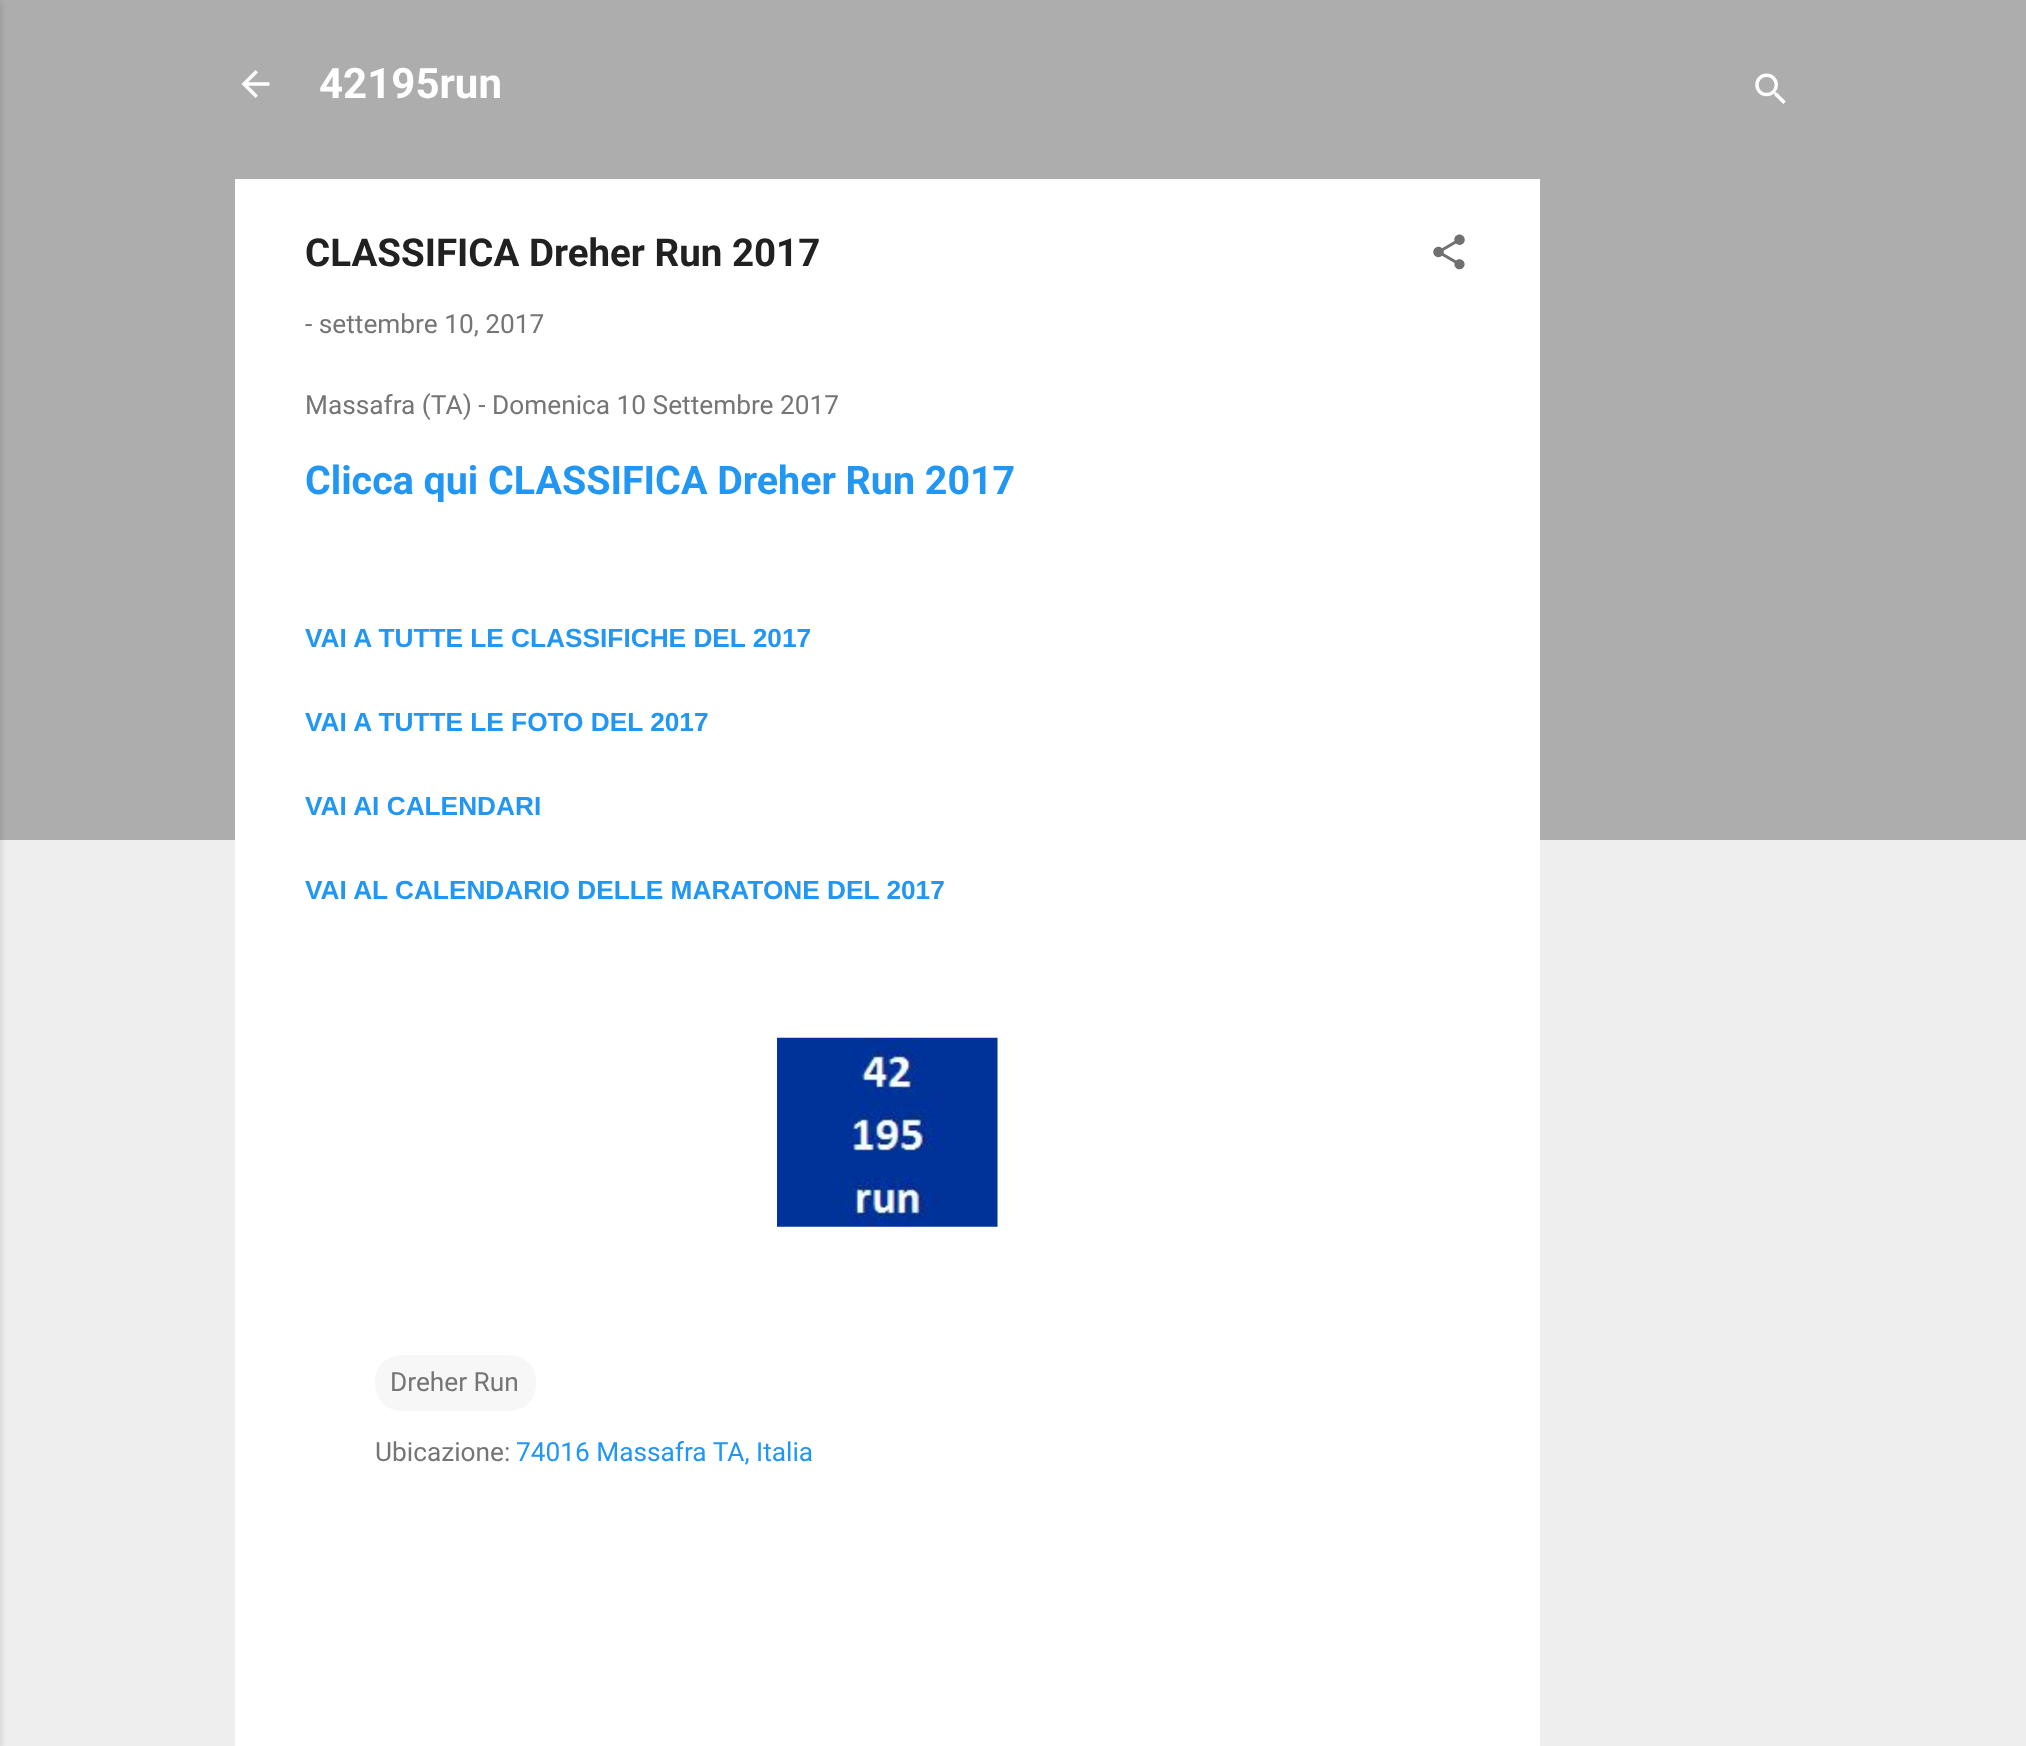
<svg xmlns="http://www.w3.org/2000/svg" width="2026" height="1746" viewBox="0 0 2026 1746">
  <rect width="100%" height="100%" fill="rgb(238,238,238)"/>
  <rect x="0" y="0" width="2026" height="840" fill="rgb(173,173,173)"/>
  <rect x="-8" y="2" width="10" height="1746" fill="rgba(0,0,0,0.1)" filter="blur(2.5px)"/>
  <image x="241" y="70" width="29" height="28" href="pic1.png"/>
  <text x="319" y="98" font-family="Roboto" font-size="42" font-weight="bold" fill="rgb(255,255,255)">42195run</text>
  <image x="1755" y="73" width="31" height="31" href="pic2.png"/>
  <rect x="235" y="179" width="1305" height="1567" fill="rgb(255,255,255)"/>
  <text x="305" y="266" font-family="Roboto" font-size="38.5" font-weight="bold" fill="rgb(33,33,33)">CLASSIFICA Dreher Run 2017</text>
  <image x="1433" y="234" width="32" height="36" href="pic3.png"/>
  <g font-family="Roboto" font-size="26.25" fill="rgb(117,117,117)">
    <text x="305" y="333">- settembre 10, 2017</text>
    <text x="305" y="414">Massafra (TA) - Domenica 10 Settembre 2017</text>
  </g>
  <text x="305" y="494" font-family="Roboto" font-size="39.4" font-weight="bold" fill="rgb(33,150,243)">Clicca qui CLASSIFICA Dreher Run 2017</text>
  <g font-family="Liberation Sans" font-size="26.25" font-weight="bold" fill="rgb(33,150,243)">
    <text x="305" y="647">VAI A TUTTE LE CLASSIFICHE DEL 2017</text>
    <text x="305" y="731">VAI A TUTTE LE FOTO DEL 2017</text>
    <text x="305" y="815">VAI AI CALENDARI</text>
    <text x="305" y="899">VAI AL CALENDARIO DELLE MARATONE DEL 2017</text>
  </g>
  <image x="777" y="1037" width="221" height="190" href="pic4.png"/>
  <rect x="375" y="1355" width="161" height="56" rx="26" fill="rgb(247,247,247)"/>
  <g font-family="Roboto" font-size="26.25" fill="rgb(117,117,117)">
    <text x="390" y="1391">Dreher Run</text>
    <text x="375" y="1461">Ubicazione:</text>
  </g>
  <text x="516" y="1461" font-family="Roboto" font-size="26.25" fill="rgb(33,150,243)">74016 Massafra TA, Italia</text>
</svg>
